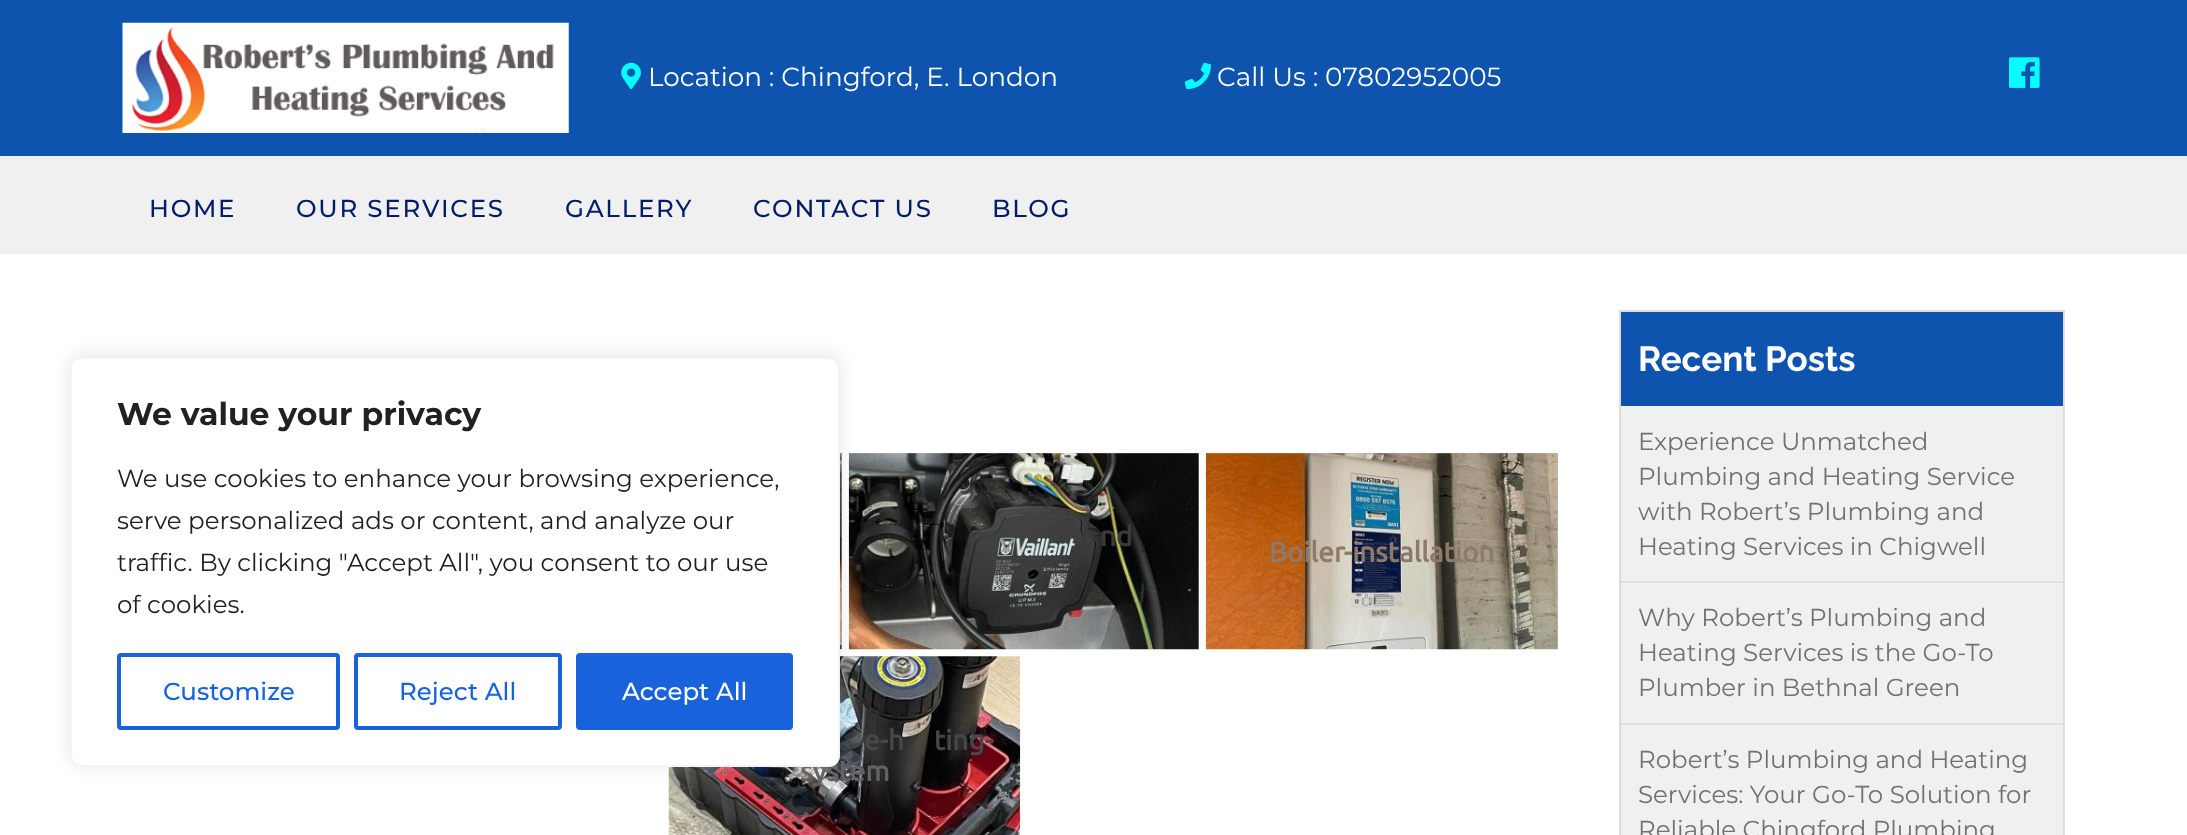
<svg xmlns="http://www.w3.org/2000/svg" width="2187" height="835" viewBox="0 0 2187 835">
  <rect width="100%" height="100%" fill="rgb(255,255,255)"/>
  <rect x="0" y="156" width="2187" height="98" fill="rgb(240,240,240)"/>
  <rect x="0" y="0" width="2187" height="156" fill="rgb(14,83,174)"/>
  <image x="122" y="22" width="447" height="111" href="pic1.png"/>
  <image x="621" y="62" width="20" height="27" href="pic2.png"/>
  <text x="648" y="86" font-family="Montserrat" font-size="26.25" fill="rgb(255,255,255)">Location : Chingford, E. London</text>
  <image x="1184" y="62" width="27" height="27" href="pic3.png"/>
  <text x="1217" y="86" font-family="Montserrat" font-size="26.25" fill="rgb(255,255,255)">Call Us : 07802952005</text>
  <image x="2009" y="57" width="31" height="31" href="pic4.png"/>
  <g font-family="Montserrat" font-size="24.5" font-weight="500" letter-spacing="1.75" fill="rgb(1,28,105)">
    <text x="149" y="217">HOME</text>
    <text x="296" y="217">OUR SERVICES</text>
    <text x="565" y="217">GALLERY</text>
    <text x="753" y="217">CONTACT US</text>
    <text x="992" y="217">BLOG</text>
  </g>
  <rect x="840" y="453" width="2" height="196" fill="rgb(179,179,179)"/>
  <image x="840" y="453" width="2" height="197" href="pic5.png"/>
  <rect x="849" y="453" width="350" height="196" fill="rgb(179,179,179)"/>
  <image x="848" y="453" width="351" height="197" href="pic6.png"/>
  <text x="1100" y="546" font-family="Ubuntu" font-size="28" font-weight="bold" fill="rgb(58,60,58)">nd</text>
  <rect x="1206" y="453" width="352" height="196" fill="rgb(179,179,179)"/>
  <image x="1205" y="453" width="353" height="197" href="pic7.png"/>
  <text x="1269" y="562" font-family="Ubuntu" font-size="28" font-weight="bold" fill="rgb(141,122,107)">Boiler-installation</text>
  <image x="668" y="656" width="353" height="179" href="pic8.png"/>
  <g font-family="Ubuntu" font-size="28" font-weight="bold" fill="rgb(71,70,75)">
    <text x="864" y="750">e-h</text>
    <text x="934" y="750">ting-</text>
  </g>
  <text x="800" y="781" font-family="Ubuntu" font-size="28" font-weight="bold" fill="rgb(99,98,99)">system</text>
  <rect x="1621" y="406" width="442" height="429" fill="rgb(240,240,240)"/>
  <rect x="1620" y="311" width="444" height="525" fill="none" stroke="rgb(220,220,220)" stroke-width="2"/>
  <rect x="1621" y="312" width="442" height="94" fill="rgb(14,83,174)"/>
  <text x="1638" y="371" font-family="Raleway" font-size="35" font-weight="bold" fill="rgb(255,255,255)">Recent Posts</text>
  <rect x="1621" y="581" width="442" height="2" fill="rgb(225,225,225)"/>
  <g font-family="Montserrat" font-size="24.5" fill="rgb(113,113,113)">
    <text>
      <tspan x="1638" y="450">Experience Unmatched</tspan>
      <tspan x="1638" y="485">Plumbing and Heating Service</tspan>
      <tspan x="1638" y="520">with Robert’s Plumbing and</tspan>
      <tspan x="1638" y="555">Heating Services in Chigwell</tspan>
    </text>
  </g>
  <rect x="1621" y="723" width="442" height="2" fill="rgb(225,225,225)"/>
  <g font-family="Montserrat" font-size="24.5" fill="rgb(113,113,113)">
    <text>
      <tspan x="1638" y="626">Why Robert’s Plumbing and</tspan>
      <tspan x="1638" y="661">Heating Services is the Go-To</tspan>
      <tspan x="1638" y="696">Plumber in Bethnal Green</tspan>
    </text>
    <text>
      <tspan x="1638" y="768">Robert’s Plumbing and Heating</tspan>
      <tspan x="1638" y="803">Services: Your Go-To Solution for</tspan>
      <tspan x="1638" y="838">Reliable Chingford Plumbing</tspan>
    </text>
  </g>
  <rect x="70" y="355" width="770" height="410" rx="11" fill="rgba(172,171,171,0.3)" filter="blur(9px)"/>
  <rect x="71" y="358" width="768" height="408" rx="10" fill="rgb(255,255,255)" stroke="rgb(244,244,244)" stroke-width="2"/>
  <text x="117" y="425" font-family="Montserrat" font-size="31.5" font-weight="bold" fill="rgb(33,33,33)">We value your privacy</text>
  <g font-family="Montserrat" font-size="24.5" fill="rgb(33,33,33)">
    <text>
      <tspan x="117" y="487">We use cookies to enhance your browsing experience,</tspan>
      <tspan x="117" y="529">serve personalized ads or content, and analyze our</tspan>
      <tspan x="117" y="571">traffic. By clicking "Accept All", you consent to our use</tspan>
      <tspan x="117" y="613">of cookies.</tspan>
    </text>
  </g>
  <rect x="119" y="655" width="219" height="73" rx="2" fill="none" stroke="rgb(24,99,220)" stroke-width="4"/>
  <text x="163" y="700" font-family="Montserrat" font-size="24.5" font-weight="500" fill="rgb(24,99,220)">Customize</text>
  <rect x="356" y="655" width="204" height="73" rx="2" fill="none" stroke="rgb(24,99,220)" stroke-width="4"/>
  <text x="399" y="700" font-family="Montserrat" font-size="24.5" font-weight="500" fill="rgb(24,99,220)">Reject All</text>
  <rect x="578" y="655" width="213" height="73" rx="2" fill="rgb(24,99,220)" stroke="rgb(24,99,220)" stroke-width="4"/>
  <text x="622" y="700" font-family="Montserrat" font-size="24.5" font-weight="500" fill="rgb(255,255,255)">Accept All</text>
</svg>
